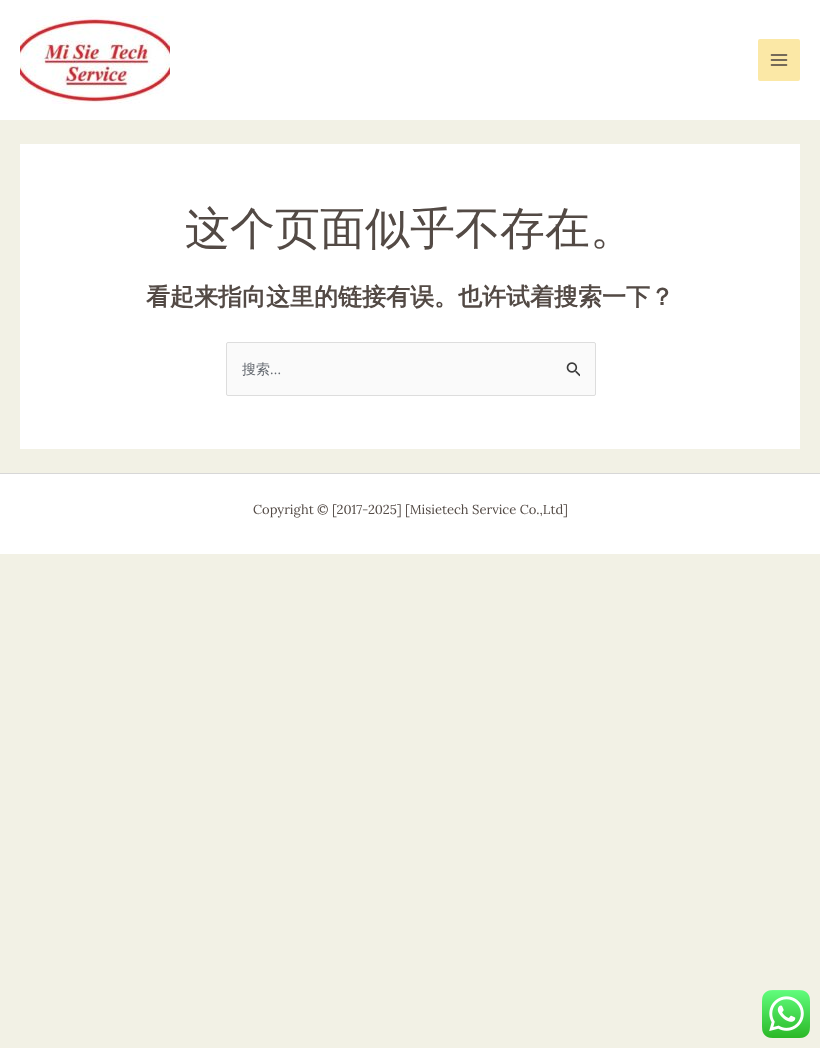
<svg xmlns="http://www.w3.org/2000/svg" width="820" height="1048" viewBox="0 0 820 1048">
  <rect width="100%" height="100%" fill="rgb(242,241,229)"/>
  <rect x="0" y="0" width="820" height="120" fill="rgb(255,255,255)"/>
  <image x="20" y="16" width="150" height="88" href="pic1.png"/>
  <rect x="758" y="39" width="42" height="42" rx="2" fill="rgb(251,232,166)"/>
  <image x="770" y="54" width="18" height="12" href="pic2.png"/>
  <rect x="20" y="144" width="780" height="305" fill="rgb(255,255,255)"/>
  <text x="185" y="244" font-family="WenQuanYi Zen Hei" font-size="45" font-weight="500" fill="rgb(83,74,69)">这个页面似乎不存在。</text>
  <text x="146" y="305" font-family="WenQuanYi Zen Hei" font-size="24" font-weight="bold" fill="rgb(83,74,69)">看起来指向这里的链接有误。也许试着搜索一下？</text>
  <rect x="226.5" y="342.5" width="369" height="53" rx="1.5" fill="rgb(250,250,250)" stroke="rgb(221,221,221)"/>
  <text x="242" y="374" font-family="WenQuanYi Zen Hei" font-size="14" font-weight="500" fill="rgb(100,105,112)">搜索</text>
  <text x="270" y="374" font-family="Lora" font-size="14" fill="rgb(100,105,112)">…</text>
  <image x="566" y="362" width="14" height="15" href="pic3.png"/>
  <rect x="0" y="474" width="820" height="80" fill="rgb(255,255,255)"/>
  <rect x="0" y="473" width="820" height="1" fill="rgb(215,215,215)"/>
  <text x="253" y="514" font-family="Lora" font-size="13" fill="rgb(83,74,69)">Copyright © [2017-2025] [Misietech Service Co.,Ltd]</text>
  <image x="762" y="990" width="48" height="48" href="pic4.png"/>
</svg>
